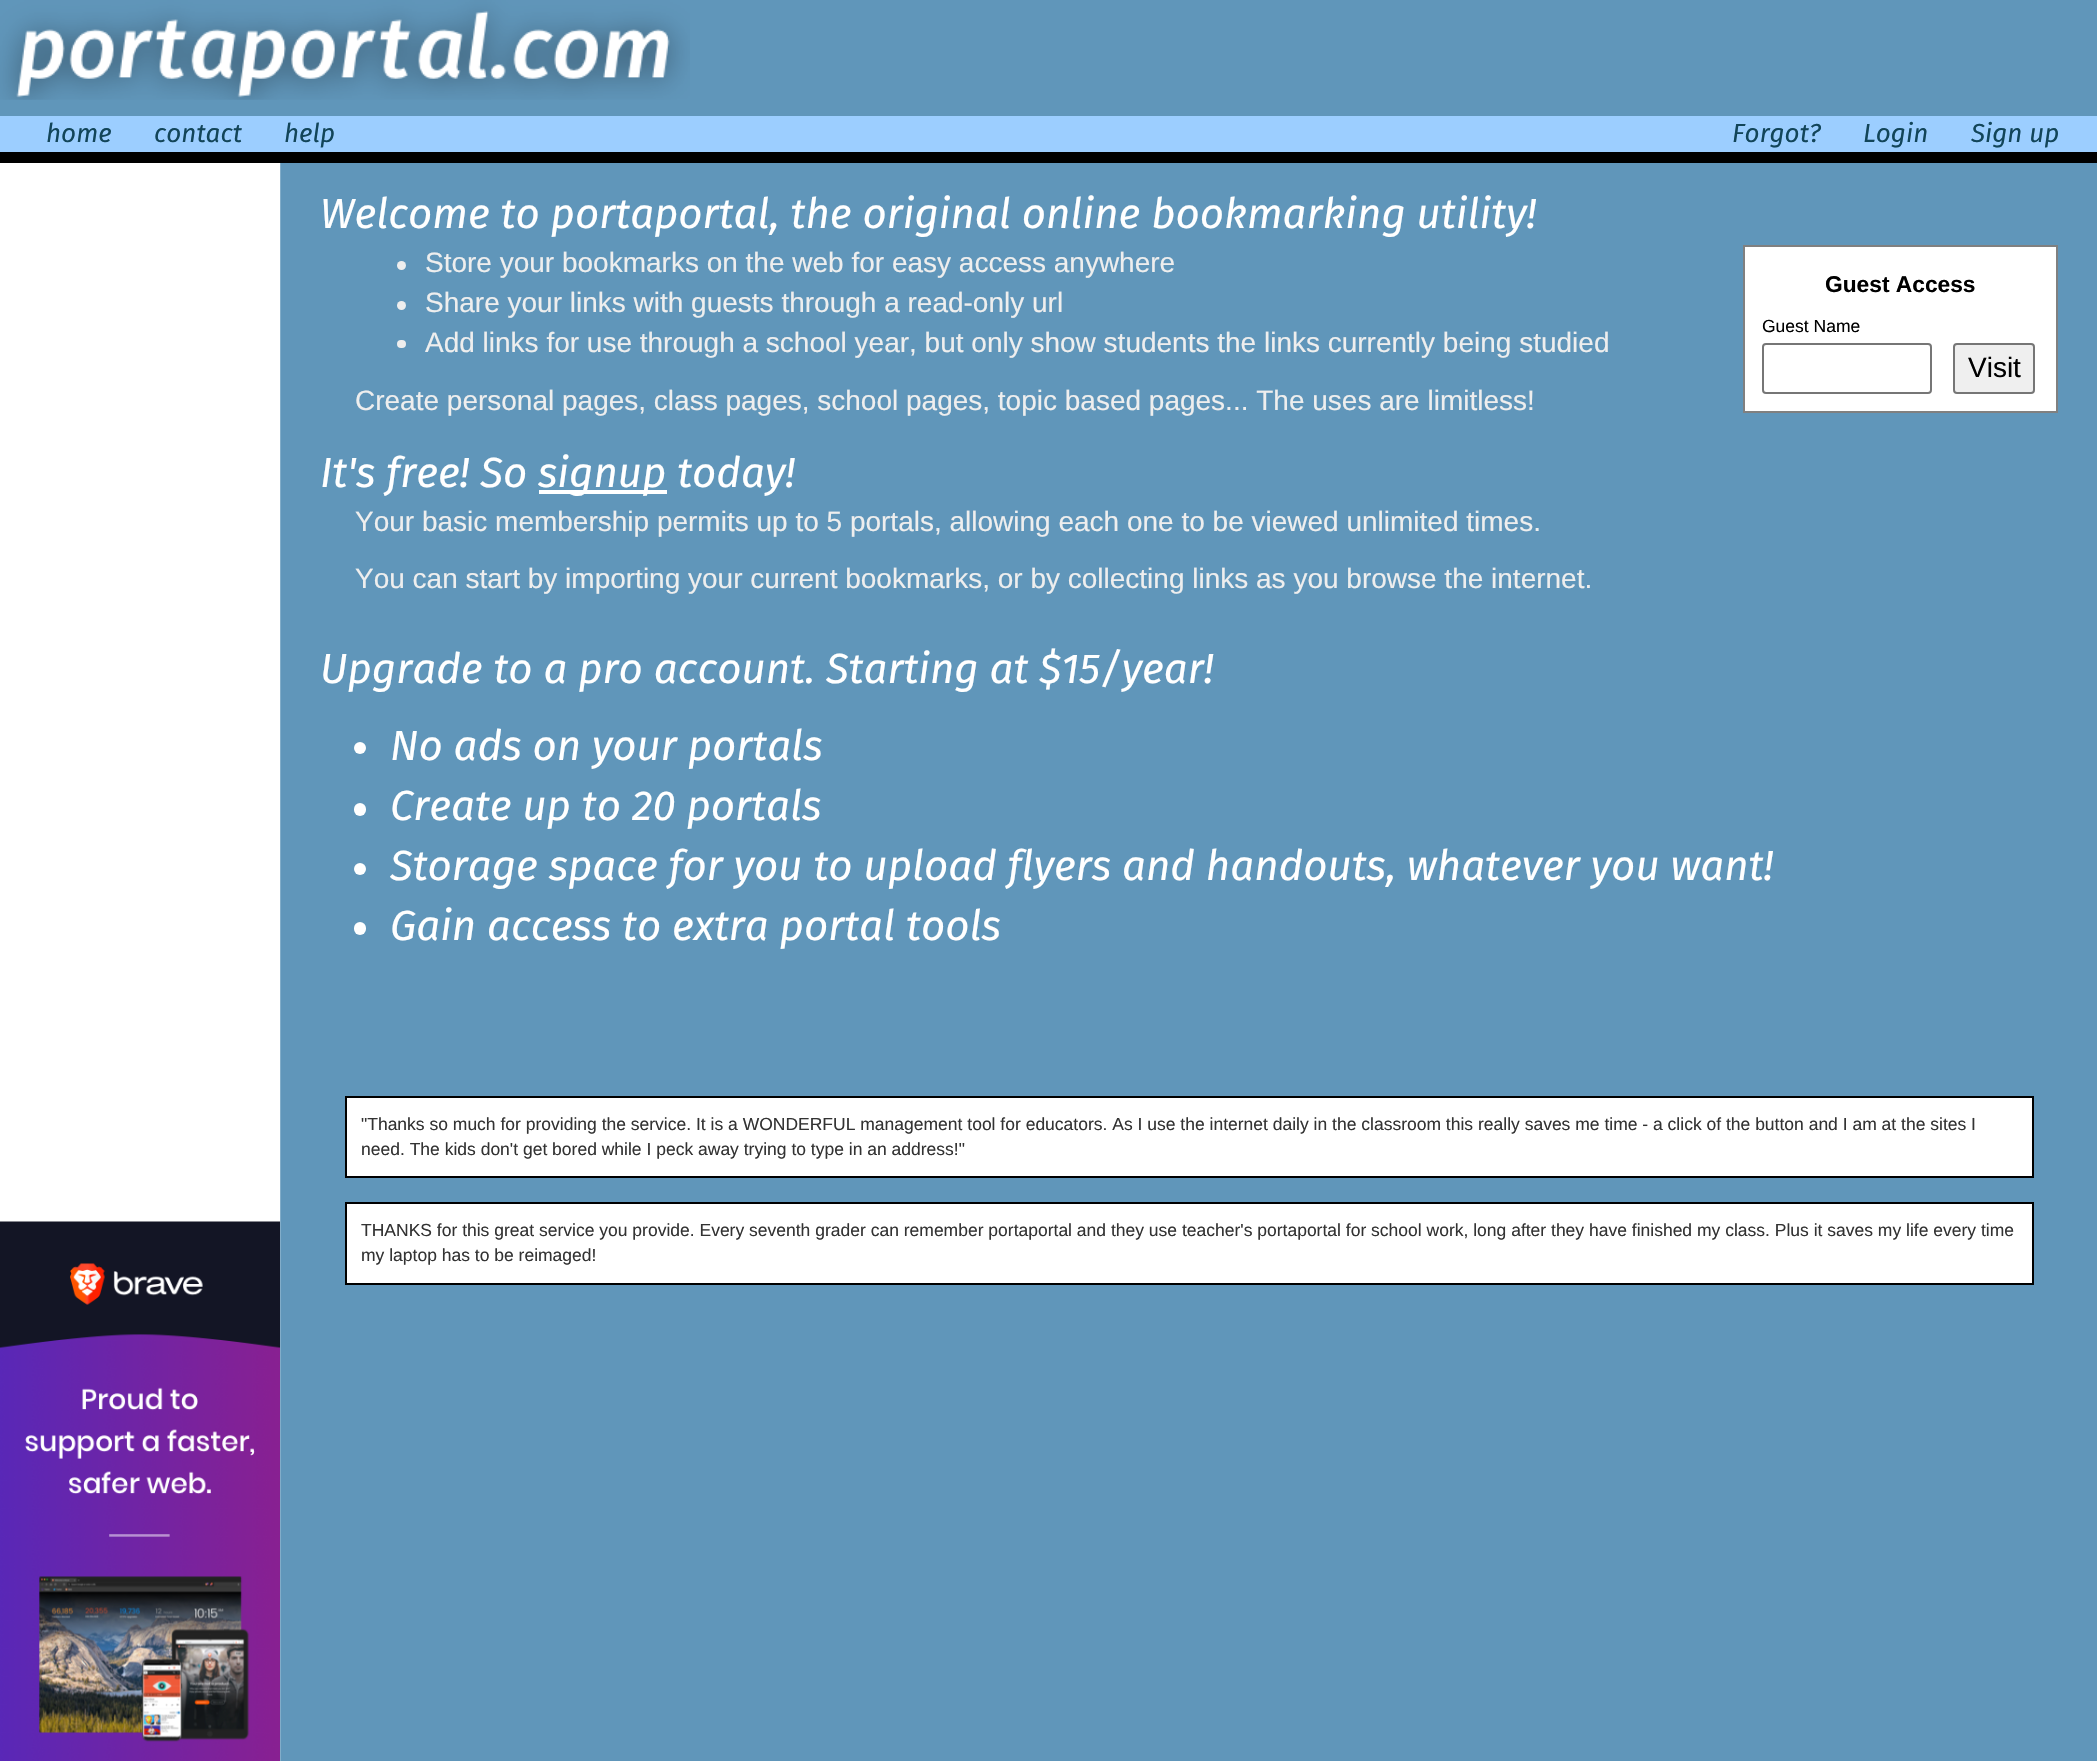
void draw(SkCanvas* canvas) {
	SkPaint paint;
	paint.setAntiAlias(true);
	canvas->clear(0xff6096ba);
	canvas->drawImageRect(SkImages::DeferredFromEncodedData(SkData::MakeFromFileName("img1.png")), SkRect::MakeXYWH(280, 163, 1, 1598), SkSamplingOptions());
	canvas->drawImageRect(SkImages::DeferredFromEncodedData(SkData::MakeFromFileName("img2.png")), SkRect::MakeXYWH(0, 0, 690, 100), SkSamplingOptions());
	paint.setColor(0xff9cceff);
	canvas->drawRect(SkRect::MakeXYWH(0, 116, 2097, 36), paint);
	paint.setColor(0xff000000);
	canvas->drawRect(SkRect::MakeXYWH(0, 152, 2097, 11), paint);
	SkFont f1(fontMgr->matchFamilyStyle("Fira Sans", SkFontStyle::Italic()), 26);
	f1.setSubpixel(true);
	paint.setColor(0xff124559);
	canvas->drawString("home", 46, 142, f1, paint);
	canvas->drawString("contact", 154, 142, f1, paint);
	canvas->drawString("help", 284, 142, f1, paint);
	canvas->drawString("Forgot?", 1732, 142, f1, paint);
	canvas->drawString("Login", 1863, 142, f1, paint);
	canvas->drawString("Sign up", 1971, 142, f1, paint);
	paint.setColor(0xffffffff);
	canvas->drawRect(SkRect::MakeXYWH(0, 163, 280, 1059), paint);
	canvas->drawImageRect(SkImages::DeferredFromEncodedData(SkData::MakeFromFileName("img3.png")), SkRect::MakeXYWH(0, 1221, 280, 540), SkSamplingOptions());
	SkFont f2(fontMgr->matchFamilyStyle("Fira Sans", SkFontStyle::Italic()), 42);
	f2.setSubpixel(true);
	canvas->drawString("Welcome to portaportal, the original online bookmarking utility!", 320, 228, f2, paint);
	paint.setColor(0xffeeeeee);
	canvas->drawCircle(401.5, 265.5, 4.5, paint);
	SkFont f3(fontMgr->matchFamilyStyle("Liberation Sans", SkFontStyle::Normal()), 28);
	f3.setSubpixel(true);
	canvas->drawString("Store your bookmarks on the web for easy access anywhere", 425, 272, f3, paint);
	canvas->drawCircle(401.5, 305.5, 4.5, paint);
	canvas->drawString("Share your links with guests through a read-only url", 425, 312, f3, paint);
	canvas->drawRoundRect(SkRect::MakeXYWH(397, 340, 9, 8), 4, 4, paint);
	canvas->drawString("Add links for use through a school year, but only show students the links currently being studied", 425, 352, f3, paint);
	paint.setColor(0xffffffff);
	canvas->drawRect(SkRect::MakeXYWH(1744, 246, 313, 166), paint);
	paint.setStroke(true);
	paint.setStrokeWidth(2);
	paint.setColor(0xff808080);
	canvas->drawRect(SkRect::MakeXYWH(1744, 246, 313, 166), paint);
	SkFont f4(fontMgr->matchFamilyStyle("Liberation Sans", SkFontStyle::Bold()), 22.75);
	f4.setSubpixel(true);
	paint.setStroke(false);
	paint.setColor(0xff000000);
	canvas->drawString("Guest Access", 1825, 292, f4, paint);
	SkFont f5(fontMgr->matchFamilyStyle("Liberation Sans", SkFontStyle::Normal()), 17.5);
	f5.setSubpixel(true);
	canvas->drawString("Guest Name", 1762, 332, f5, paint);
	paint.setStroke(true);
	paint.setColor(0xff767676);
	canvas->drawRoundRect(SkRect::MakeXYWH(1763, 344, 168, 49), 3, 3, paint);
	paint.setStroke(false);
	paint.setColor(0xffefefef);
	canvas->drawRoundRect(SkRect::MakeXYWH(1954, 344, 80, 49), 3, 3, paint);
	paint.setStroke(true);
	paint.setColor(0xff767676);
	canvas->drawRoundRect(SkRect::MakeXYWH(1954, 344, 80, 49), 3, 3, paint);
	paint.setStroke(false);
	paint.setColor(0xff000000);
	canvas->drawString("Visit", 1968, 377, f3, paint);
	paint.setColor(0xffeeeeee);
	canvas->drawString("Create personal pages, class pages, school pages, topic based pages... The uses are limitless!", 355, 410, f3, paint);
	paint.setColor(0xffffffff);
	canvas->drawString("It's free! So", 320, 487, f2, paint);
	canvas->drawRect(SkRect::MakeXYWH(539, 490, 128, 4), paint);
	canvas->drawString("signup today!", 538, 487, f2, paint);
	paint.setColor(0xffeeeeee);
	canvas->drawString("Your basic membership permits up to 5 portals, allowing each one to be viewed unlimited times.", 355, 531, f3, paint);
	canvas->drawString("You can start by importing your current bookmarks, or by collecting links as you browse the internet.", 355, 588, f3, paint);
	paint.setColor(0xffffffff);
	canvas->drawString("Upgrade to a pro account. Starting at $15/year!", 320, 683, f2, paint);
	canvas->drawCircle(360, 748, 6, paint);
	canvas->drawString("No ads on your portals", 390, 760, f2, paint);
	canvas->drawRoundRect(SkRect::MakeXYWH(354, 803, 12, 13), 6, 6, paint);
	canvas->drawString("Create up to 20 portals", 390, 820, f2, paint);
	canvas->drawCircle(360, 869, 6, paint);
	canvas->drawString("Storage space for you to upload flyers and handouts, whatever you want!", 390, 880, f2, paint);
	canvas->drawRoundRect(SkRect::MakeXYWH(354, 922, 12, 13), 6, 6, paint);
	canvas->drawString("Gain access to extra portal tools", 390, 940, f2, paint);
	canvas->drawRect(SkRect::MakeXYWH(346, 1097, 1687, 80), paint);
	paint.setStroke(true);
	paint.setColor(0xff000000);
	canvas->drawRect(SkRect::MakeXYWH(346, 1097, 1687, 80), paint);
	paint.setStroke(false);
	paint.setColor(0xff333333);
	canvas->drawString("\"Thanks so much for providing the service. It is a WONDERFUL management tool for educators. As I use the internet daily in the classroom this really saves me time - a click of the button and I am at the sites I", 361, 1130, f5, paint);
	canvas->drawString("need. The kids don't get bored while I peck away trying to type in an address!\"", 361, 1155, f5, paint);
	paint.setColor(0xffffffff);
	canvas->drawRect(SkRect::MakeXYWH(346, 1203, 1687, 81), paint);
	paint.setStroke(true);
	paint.setColor(0xff000000);
	canvas->drawRect(SkRect::MakeXYWH(346, 1203, 1687, 81), paint);
	paint.setStroke(false);
	paint.setColor(0xff333333);
	canvas->drawString("THANKS for this great service you provide. Every seventh grader can remember portaportal and they use teacher's portaportal for school work, long after they have finished my class. Plus it saves my life every time", 361, 1236, f5, paint);
	canvas->drawString("my laptop has to be reimaged!", 361, 1261, f5, paint);
}
